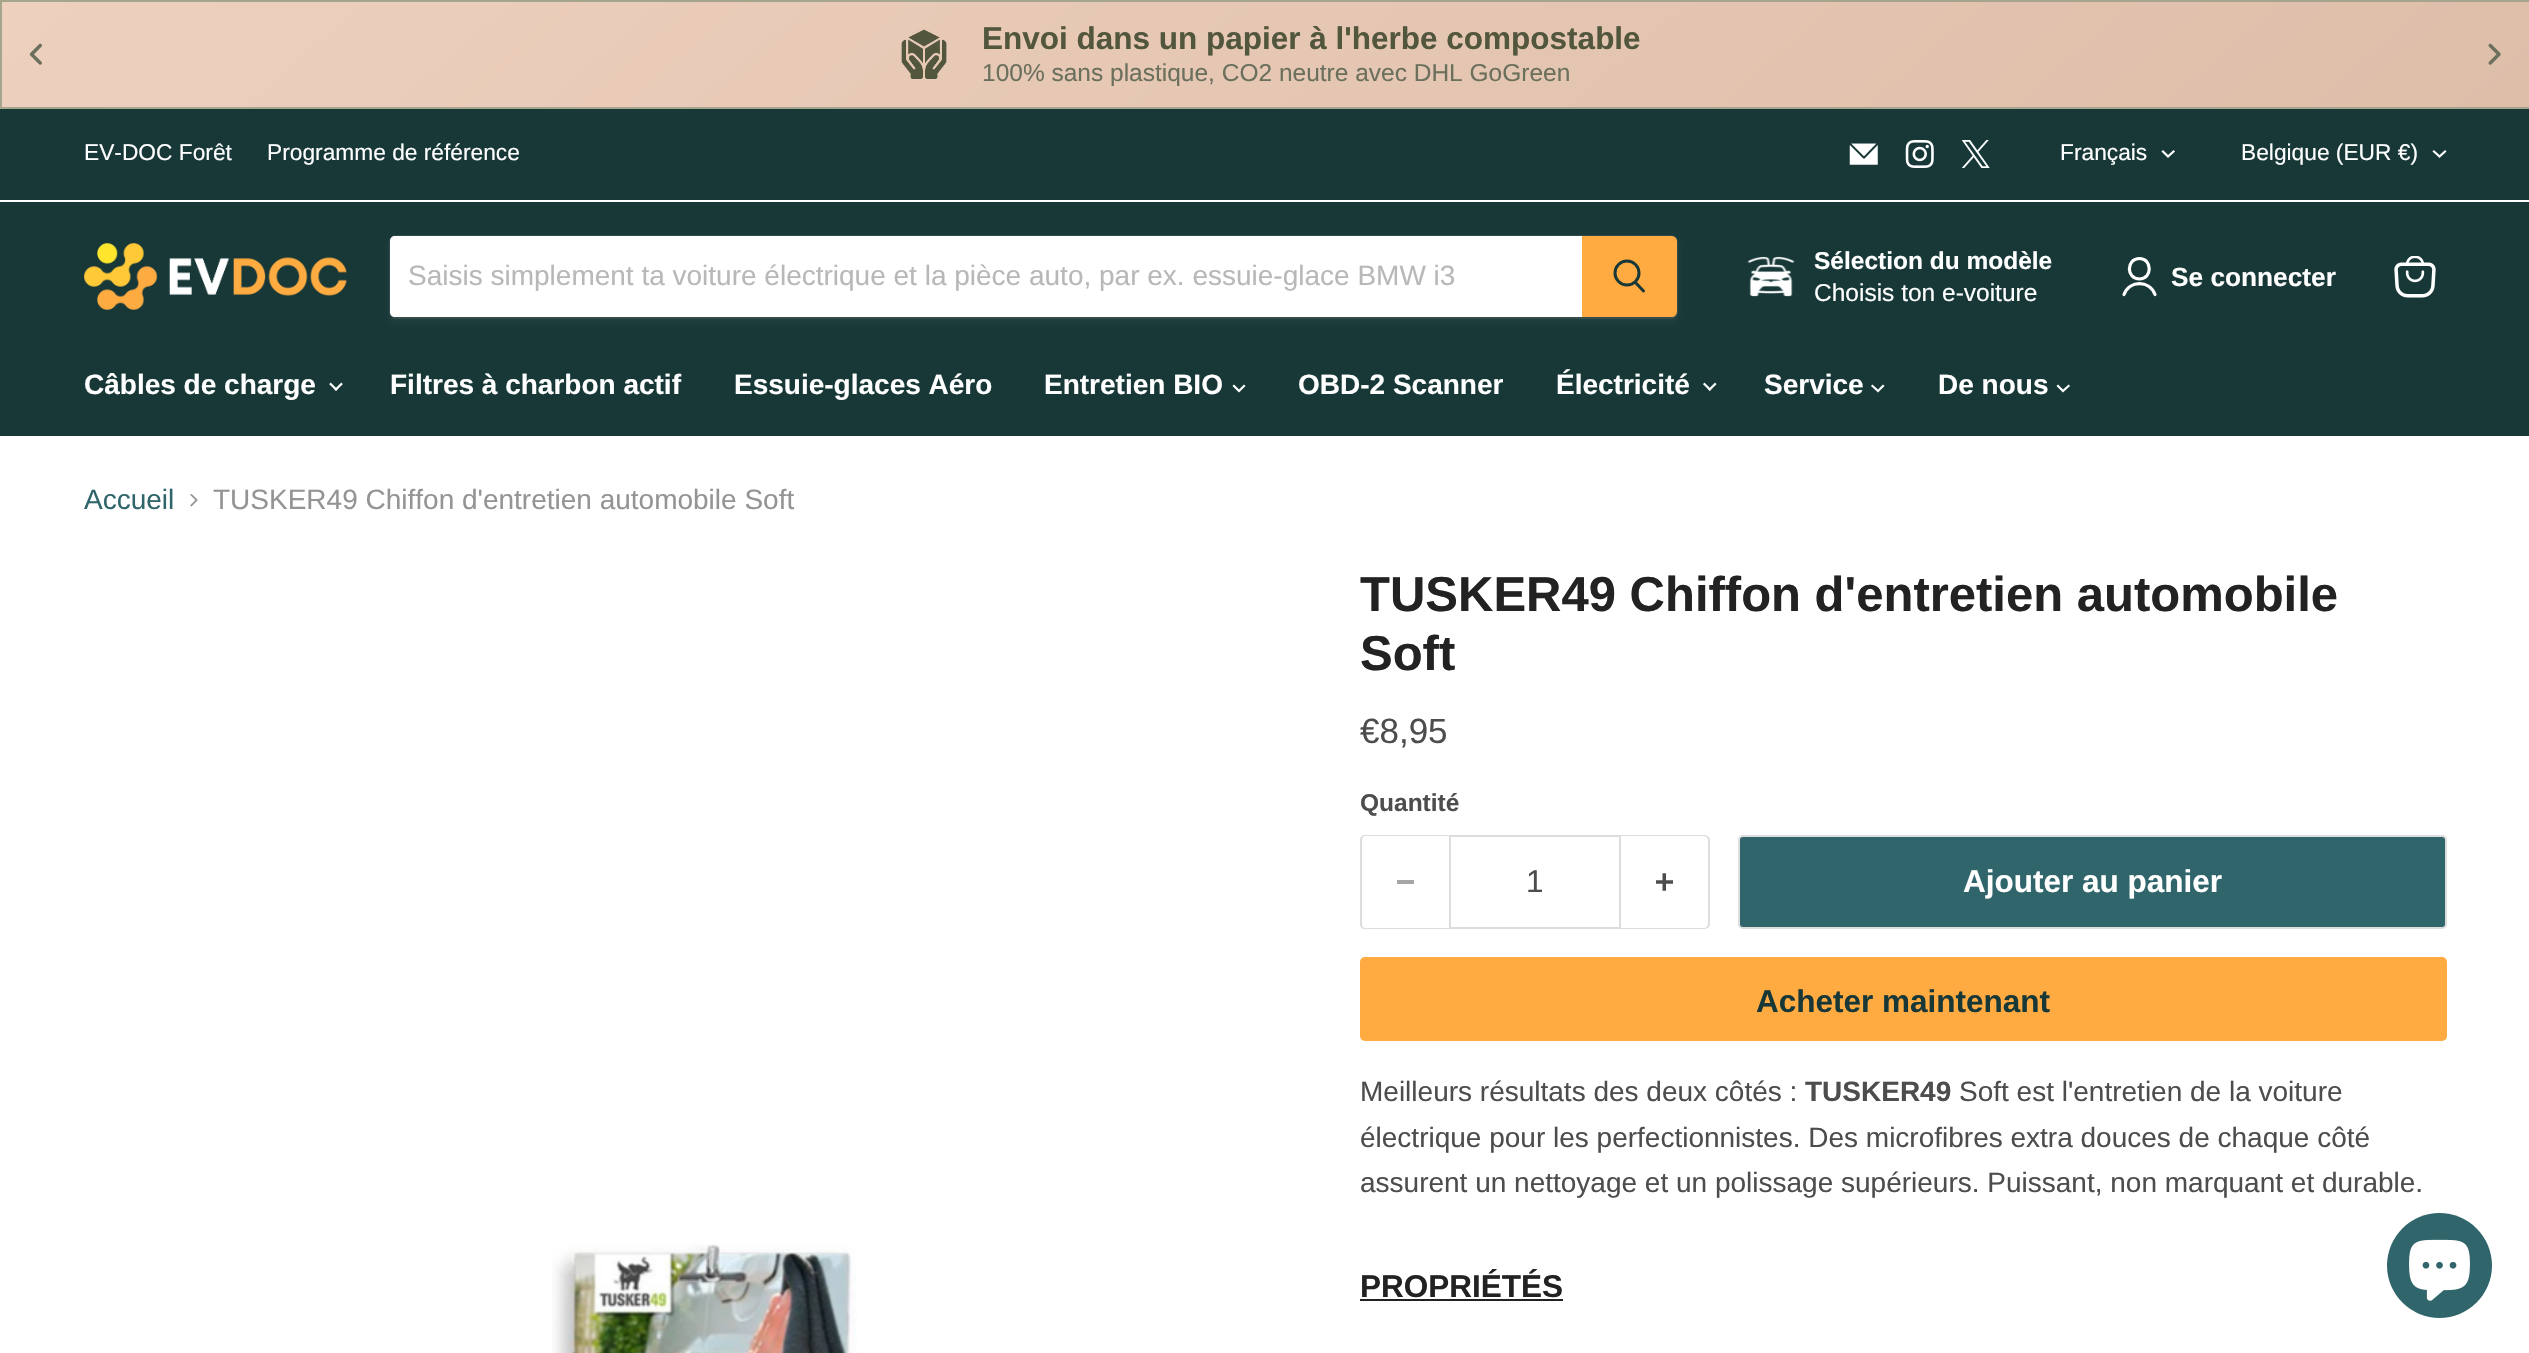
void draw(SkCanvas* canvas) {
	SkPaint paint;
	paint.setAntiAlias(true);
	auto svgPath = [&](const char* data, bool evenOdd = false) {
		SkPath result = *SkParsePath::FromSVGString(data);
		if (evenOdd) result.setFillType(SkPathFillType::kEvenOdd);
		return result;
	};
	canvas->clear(0xffffffff);
	{
		const SkColor colors[] = {0xffedd0be, 0xffddbea9};
		const float stops[] = {0, 1};
		const SkPoint ends[] = {{695, -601}, {1835, 710}};
		paint.setShader(SkGradientShader::MakeLinear(ends, colors, stops, 2, SkTileMode::kClamp));
		paint.setAlpha(255);
	}
	canvas->drawRect(SkRect::MakeXYWH(2, 2, 2527, 105), paint);
	paint.setStroke(true);
	paint.setStrokeWidth(2);
	paint.setShader(nullptr);
	paint.setColor(0xffa5a58d);
	canvas->drawRect(SkRect::MakeXYWH(1, 1, 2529, 107), paint);
	canvas->drawImageRect(SkImages::DeferredFromEncodedData(SkData::MakeFromFileName("img1.png")), SkRect::MakeXYWH(901, 29, 46, 50), SkSamplingOptions());
	SkFont f1(fontMgr->matchFamilyStyle("Liberation Sans", SkFontStyle::Bold()), 31.5);
	f1.setSubpixel(true);
	paint.setStroke(false);
	paint.setColor(0xff52563c);
	canvas->drawString("Envoi dans un papier à l'herbe compostable", 982, 49, f1, paint);
	SkFont f2(fontMgr->matchFamilyStyle("Liberation Sans", SkFontStyle::Normal()), 24.5);
	f2.setSubpixel(true);
	paint.setColor(0xff6b705c);
	canvas->drawString("100% sans plastique, CO2 neutre avec DHL GoGreen", 982, 81, f2, paint);
	canvas->drawImageRect(SkImages::DeferredFromEncodedData(SkData::MakeFromFileName("img2.png")), SkRect::MakeXYWH(29, 43, 13, 22), SkSamplingOptions());
	canvas->drawImageRect(SkImages::DeferredFromEncodedData(SkData::MakeFromFileName("img3.png")), SkRect::MakeXYWH(2488, 43, 13, 22), SkSamplingOptions());
	paint.setColor(0xff183838);
	canvas->drawRect(SkRect::MakeXYWH(0, 109, 2529, 91), paint);
	SkFont f3(fontMgr->matchFamilyStyle("Liberation Sans", SkFontStyle::Normal()), 22.75);
	f3.setSubpixel(true);
	paint.setColor(0xffffffff);
	canvas->drawString("EV-DOC Forêt", 84, 160, f3, paint);
	canvas->drawString("Programme de référence", 267, 160, f3, paint);
	canvas->drawImageRect(SkImages::DeferredFromEncodedData(SkData::MakeFromFileName("img4.png")), SkRect::MakeXYWH(1849, 143, 29, 22), SkSamplingOptions());
	canvas->drawImageRect(SkImages::DeferredFromEncodedData(SkData::MakeFromFileName("img5.png")), SkRect::MakeXYWH(1905, 140, 29, 28), SkSamplingOptions());
	canvas->drawImageRect(SkImages::DeferredFromEncodedData(SkData::MakeFromFileName("img6.png")), SkRect::MakeXYWH(1961, 140, 29, 28), SkSamplingOptions());
	canvas->drawString("Français", 2060, 160, f3, paint);
	paint.setStroke(true);
	paint.setStrokeWidth(2.2);
	paint.setStrokeCap(SkPaint::kSquare_Cap);
	canvas->drawPath(svgPath("M2168 156.5L2173.5 151.5M2168 156.5L2163 151.5"), paint);
	paint.setStroke(false);
	canvas->drawString("Belgique (EUR €)", 2241, 160, f3, paint);
	paint.setStroke(true);
	canvas->drawPath(svgPath("M2439.5 156.5L2445 151.5M2439.5 156.5L2434 151.5"), paint);
	paint.setStroke(false);
	paint.setColor(0xff183838);
	canvas->drawRect(SkRect::MakeXYWH(0, 202, 2529, 234), paint);
	canvas->drawImageRect(SkImages::DeferredFromEncodedData(SkData::MakeFromFileName("img7.png")), SkRect::MakeXYWH(84, 243, 263, 67), SkSamplingOptions());
	paint.setColor(0x1c808080);
	paint.setMaskFilter(SkMaskFilter::MakeBlur(kNormal_SkBlurStyle, 2.5));
	canvas->drawRoundRect(SkRect::MakeXYWH(389, 238, 1289, 84), 7, 7, paint);
	paint.setMaskFilter(nullptr);
	paint.setStroke(true);
	paint.setStrokeWidth(2);
	paint.setStrokeCap(SkPaint::kButt_Cap);
	paint.setColor(0x33808080);
	canvas->drawRoundRect(SkRect::MakeXYWH(390, 236, 1287, 82), 6, 6, paint);
	paint.setStroke(false);
	paint.setColor(0xffffffff);
	canvas->drawPath(svgPath("M395 236H1582V317H395C392 317 390 315 390 312V241C390 238 392 236 395 236Z"), paint);
	SkFont f4(fontMgr->matchFamilyStyle("Liberation Sans", SkFontStyle::Normal()), 28);
	f4.setSubpixel(true);
	paint.setColor(0xffb8b8b8);
	canvas->drawString("Saisis simplement ta voiture électrique et la pièce auto, par ex. essuie-glace BMW i3", 408, 285, f4, paint);
	paint.setColor(0xffffab41);
	canvas->drawPath(svgPath("M1583 237H1672C1674 237 1676 239 1676 241V312C1676 314 1674 316 1672 316H1583Z"), paint);
	paint.setStroke(true);
	canvas->drawPath(svgPath("M1583 237H1672C1674 237 1676 239 1676 241V312C1676 314 1674 316 1672 316H1583Z"), paint);
	paint.setStrokeWidth(3);
	paint.setStrokeCap(SkPaint::kRound_Cap);
	paint.setColor(0xff183838);
	canvas->drawPath(svgPath("M1643.5 291L1635.5 282.5"), paint);
	paint.setStrokeCap(SkPaint::kButt_Cap);
	canvas->drawCircle(1627, 273, 12, paint);
	canvas->drawImageRect(SkImages::DeferredFromEncodedData(SkData::MakeFromFileName("img8.png")), SkRect::MakeXYWH(1747, 256, 48, 41), SkSamplingOptions());
	SkFont f5(fontMgr->matchFamilyStyle("Liberation Sans", SkFontStyle::Bold()), 24.5);
	f5.setSubpixel(true);
	paint.setStroke(false);
	paint.setColor(0xffffffff);
	canvas->drawString("Sélection du modèle", 1814, 269, f5, paint);
	canvas->drawString("Choisis ton e-voiture", 1814, 301, f2, paint);
	paint.setStroke(true);
	paint.setStrokeWidth(3.2);
	paint.setStrokeCap(SkPaint::kRound_Cap);
	paint.setStrokeJoin(SkPaint::kRound_Join);
	canvas->drawPath(svgPath("M2139.5 279C2152.5 279 2152.5 258.5 2139.5 258.5C2126 258.5 2126 279 2139.5 279ZM2155 294.5C2149.5 280 2129.5 280 2124 294.5"), paint);
	SkFont f6(fontMgr->matchFamilyStyle("Liberation Sans", SkFontStyle::Bold()), 26.25);
	f6.setSubpixel(true);
	paint.setStroke(false);
	canvas->drawString("Se connecter", 2171, 286, f6, paint);
	canvas->drawImageRect(SkImages::DeferredFromEncodedData(SkData::MakeFromFileName("img9.png")), SkRect::MakeXYWH(2394, 256, 42, 42), SkSamplingOptions());
	SkFont f7(fontMgr->matchFamilyStyle("Liberation Sans", SkFontStyle::Bold()), 28);
	f7.setSubpixel(true);
	canvas->drawString("Câbles de charge", 84, 394, f7, paint);
	canvas->drawImageRect(SkImages::DeferredFromEncodedData(SkData::MakeFromFileName("img10.png")), SkRect::MakeXYWH(329, 382, 14, 9), SkSamplingOptions());
	canvas->drawString("Filtres à charbon actif", 390, 394, f7, paint);
	canvas->drawString("Essuie-glaces Aéro", 734, 394, f7, paint);
	canvas->drawString("Entretien BIO", 1044, 394, f7, paint);
	paint.setStroke(true);
	paint.setStrokeWidth(2.2);
	paint.setStrokeCap(SkPaint::kSquare_Cap);
	paint.setStrokeJoin(SkPaint::kMiter_Join);
	canvas->drawPath(svgPath("M1239 391L1244 386M1239 391L1234 386"), paint);
	paint.setStroke(false);
	canvas->drawString("OBD-2 Scanner", 1298, 394, f7, paint);
	canvas->drawString("Électricité", 1556, 394, f7, paint);
	canvas->drawImageRect(SkImages::DeferredFromEncodedData(SkData::MakeFromFileName("img11.png")), SkRect::MakeXYWH(1703, 382, 14, 9), SkSamplingOptions());
	canvas->drawString("Service", 1764, 394, f7, paint);
	paint.setStroke(true);
	canvas->drawPath(svgPath("M1878 391L1883 386M1878 391L1872.5 386"), paint);
	paint.setStroke(false);
	canvas->drawString("De nous", 1938, 394, f7, paint);
	paint.setStroke(true);
	canvas->drawPath(svgPath("M2063 391L2068.5 386M2063 391L2058 386"), paint);
	paint.setStroke(false);
	paint.setColor(0xff2f656b);
	canvas->drawString("Accueil", 84, 509, f4, paint);
	canvas->drawImageRect(SkImages::DeferredFromEncodedData(SkData::MakeFromFileName("img12.png")), SkRect::MakeXYWH(190, 494, 8, 13), SkSamplingOptions());
	paint.setColor(0xff949494);
	canvas->drawString("TUSKER49 Chiffon d'entretien automobile Soft", 213, 509, f4, paint);
	canvas->drawImageRect(SkImages::DeferredFromEncodedData(SkData::MakeFromFileName("img13.png")), SkRect::MakeXYWH(552, 1244, 305, 109), SkSamplingOptions());
	SkFont f8(fontMgr->matchFamilyStyle("Liberation Sans", SkFontStyle::Bold()), 49);
	f8.setSubpixel(true);
	paint.setColor(0xff222222);
	canvas->drawString("TUSKER49 Chiffon d'entretien automobile", 1360, 611, f8, paint);
	canvas->drawString("Soft", 1360, 670, f8, paint);
	SkFont f9(fontMgr->matchFamilyStyle("Liberation Sans", SkFontStyle::Normal()), 35);
	f9.setSubpixel(true);
	paint.setColor(0xff4d4d4d);
	canvas->drawString("€8,95", 1360, 743, f9, paint);
	canvas->drawString("Quantité", 1360, 811, f5, paint);
	paint.setColor(0xffdddddd);
	canvas->drawPath(svgPath("M1365 835H1449V929H1365C1362 929 1360 927 1360 924V840C1360 837 1362 835 1365 835ZM1365 836H1449V928H1365C1363 928 1362 926 1362 924V840C1362 838 1363 836 1365 836Z", true), paint);
	paint.setColor(0xffa6a6a6);
	canvas->drawRect(SkRect::MakeXYWH(1397, 880, 17, 4), paint);
	paint.setStroke(true);
	paint.setStrokeWidth(2);
	paint.setStrokeCap(SkPaint::kButt_Cap);
	paint.setColor(0xffdddddd);
	canvas->drawRect(SkRect::MakeXYWH(1450, 836, 170, 92), paint);
	SkFont f10(fontMgr->matchFamilyStyle("Liberation Sans", SkFontStyle::Normal()), 31.5);
	f10.setSubpixel(true);
	paint.setStroke(false);
	paint.setColor(0xff4d4d4d);
	canvas->drawString("1", 1526, 892, f10, paint);
	paint.setColor(0xffdddddd);
	canvas->drawPath(svgPath("M1620 835H1704C1707 835 1710 837 1710 840V924C1710 927 1707 929 1704 929H1620ZM1620 836H1704C1706 836 1708 838 1708 840V924C1708 926 1706 928 1704 928H1620Z", true), paint);
	canvas->drawImageRect(SkImages::DeferredFromEncodedData(SkData::MakeFromFileName("img14.png")), SkRect::MakeXYWH(1656, 873, 17, 18), SkSamplingOptions());
	paint.setColor(0xff2f656b);
	canvas->drawRoundRect(SkRect::MakeXYWH(1739, 836, 707, 92), 4, 4, paint);
	paint.setStroke(true);
	paint.setColor(0xffdddddd);
	canvas->drawRoundRect(SkRect::MakeXYWH(1739, 836, 707, 92), 4, 4, paint);
	paint.setStroke(false);
	paint.setColor(0xffffffff);
	canvas->drawString("Ajouter au panier", 1963, 892, f1, paint);
	paint.setColor(0xffffab41);
	canvas->drawRoundRect(SkRect::MakeXYWH(1360, 957, 1087, 84), 5, 5, paint);
	paint.setColor(0xff183838);
	canvas->drawString("Acheter maintenant", 1756, 1012, f1, paint);
	paint.setColor(0xff4d4d4d);
	canvas->drawString("Meilleurs résultats des deux côtés :", 1360, 1101, f4, paint);
	canvas->drawString("TUSKER49", 1805, 1101, f7, paint);
	canvas->drawString("Soft est l'entretien de la voiture", 1959, 1101, f4, paint);
	canvas->drawString("électrique pour les perfectionnistes. Des microfibres extra douces de chaque côté", 1360, 1147, f4, paint);
	canvas->drawString("assurent un nettoyage et un polissage supérieurs. Puissant, non marquant et durable.", 1360, 1192, f4, paint);
	paint.setColor(0xff222222);
	canvas->drawString("PROPRIÉTÉS", 1360, 1297, f1, paint);
	canvas->drawRect(SkRect::MakeXYWH(1360, 1299, 203, 2), paint);
	paint.setColor(0xff2f656b);
	canvas->drawCircle(2439.5, 1265.5, 52.5, paint);
	canvas->drawImageRect(SkImages::DeferredFromEncodedData(SkData::MakeFromFileName("img15.png")), SkRect::MakeXYWH(2409, 1239, 61, 62), SkSamplingOptions());
}
